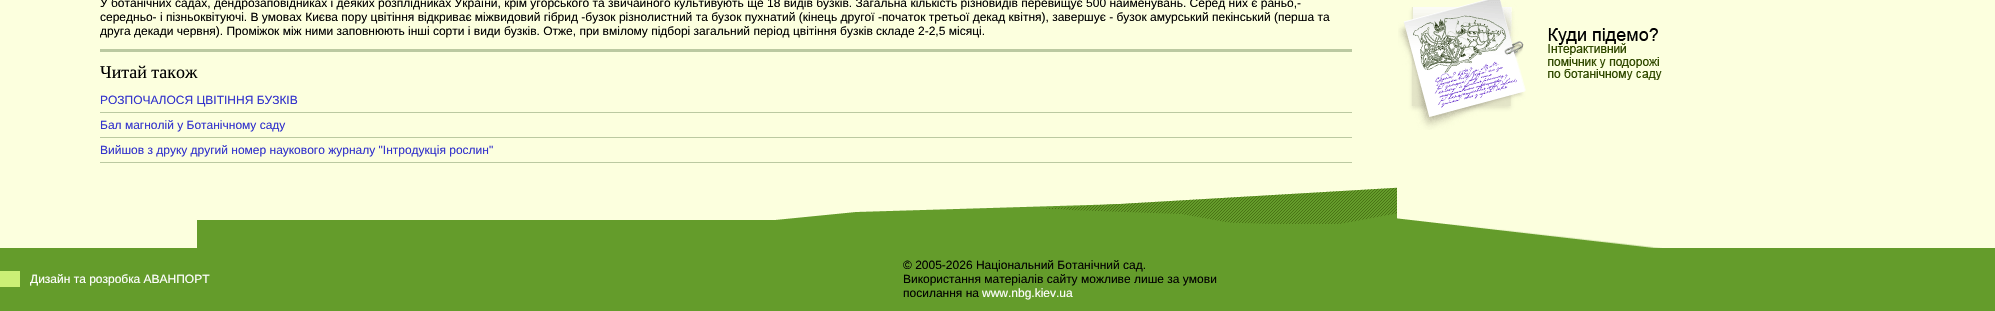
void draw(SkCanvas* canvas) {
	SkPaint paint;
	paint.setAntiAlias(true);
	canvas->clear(0xff649c2b);
	paint.setColor(0xfffcffde);
	canvas->drawRect(SkRect::MakeXYWH(0, 0, 1995, 248), paint);
	canvas->drawImageRect(SkImages::DeferredFromEncodedData(SkData::MakeFromFileName("img1.png")), SkRect::MakeXYWH(197, 187, 1200, 61), SkSamplingOptions());
	SkFont f1(fontMgr->matchFamilyStyle("Liberation Sans", SkFontStyle::Normal()), 12);
	f1.setSubpixel(true);
	paint.setColor(0xff000000);
	canvas->drawString("У ботанічних садах, дендрозаповідниках і деяких розплідниках України, крім угорського та звичайного культивують ще 18 видів бузків. Загальна кількість різновидів перевищує 500 найменувань. Серед них є раньо,-", 100, 7, f1, paint);
	canvas->drawString("середньо- і пізньоквітуючі. В умовах Києва пору цвітіння відкриває міжвидовий гібрид -бузок різнолистний та бузок пухнатий (кінець другої -початок третьої декад квітня), завершує - бузок амурський пекінський (перша та", 100, 21, f1, paint);
	canvas->drawString("друга декади червня). Проміжок між ними заповнюють інші сорти і види бузків. Отже, при вмілому підборі загальний період цвітіння бузків складе 2-2,5 місяці.", 100, 35, f1, paint);
	paint.setColor(0xffbbc9a1);
	canvas->drawRect(SkRect::MakeXYWH(100, 49, 1252, 3), paint);
	SkFont f2(fontMgr->matchFamilyStyle("Liberation Serif", SkFontStyle::Normal()), 18);
	f2.setSubpixel(true);
	paint.setColor(0xff000000);
	canvas->drawString("Читай також", 100, 78, f2, paint);
	paint.setColor(0xffbbc9a1);
	canvas->drawRect(SkRect::MakeXYWH(100, 112, 1252, 1), paint);
	paint.setColor(0xff3333cc);
	canvas->drawString("РОЗПОЧАЛОСЯ ЦВІТІННЯ БУЗКІВ", 100, 104, f1, paint);
	paint.setColor(0xffbbc9a1);
	canvas->drawRect(SkRect::MakeXYWH(100, 137, 1252, 1), paint);
	paint.setColor(0xff3333cc);
	canvas->drawString("Бал магнолій у Ботанічному саду", 100, 129, f1, paint);
	paint.setColor(0xffbbc9a1);
	canvas->drawRect(SkRect::MakeXYWH(100, 162, 1252, 1), paint);
	paint.setColor(0xff3333cc);
	canvas->drawString("Вийшов з друку другий номер наукового журналу \"Інтродукція рослин\"", 100, 154, f1, paint);
	canvas->drawImageRect(SkImages::DeferredFromEncodedData(SkData::MakeFromFileName("img2.png")), SkRect::MakeXYWH(1397, 218, 265, 30), SkSamplingOptions());
	canvas->drawImageRect(SkImages::DeferredFromEncodedData(SkData::MakeFromFileName("img3.png")), SkRect::MakeXYWH(1398, 0, 128, 130), SkSamplingOptions());
	canvas->drawImageRect(SkImages::DeferredFromEncodedData(SkData::MakeFromFileName("img4.png")), SkRect::MakeXYWH(1548, 28, 114, 52), SkSamplingOptions());
	paint.setColor(0xffcbef76);
	canvas->drawRect(SkRect::MakeXYWH(0, 271, 20, 16), paint);
	paint.setColor(0xffffffff);
	canvas->drawString("Дизайн та розробка АВАНПОРТ", 30, 283, f1, paint);
	paint.setColor(0xff000000);
	canvas->drawString("© 2005-2026 Національний Ботанічний сад.", 903, 269, f1, paint);
	canvas->drawString("Використання матеріалів сайту можливе лише за умови", 903, 283, f1, paint);
	canvas->drawString("посилання на", 903, 297, f1, paint);
	paint.setColor(0xffffffff);
	canvas->drawString("www.nbg.kiev.ua", 982, 297, f1, paint);
}
